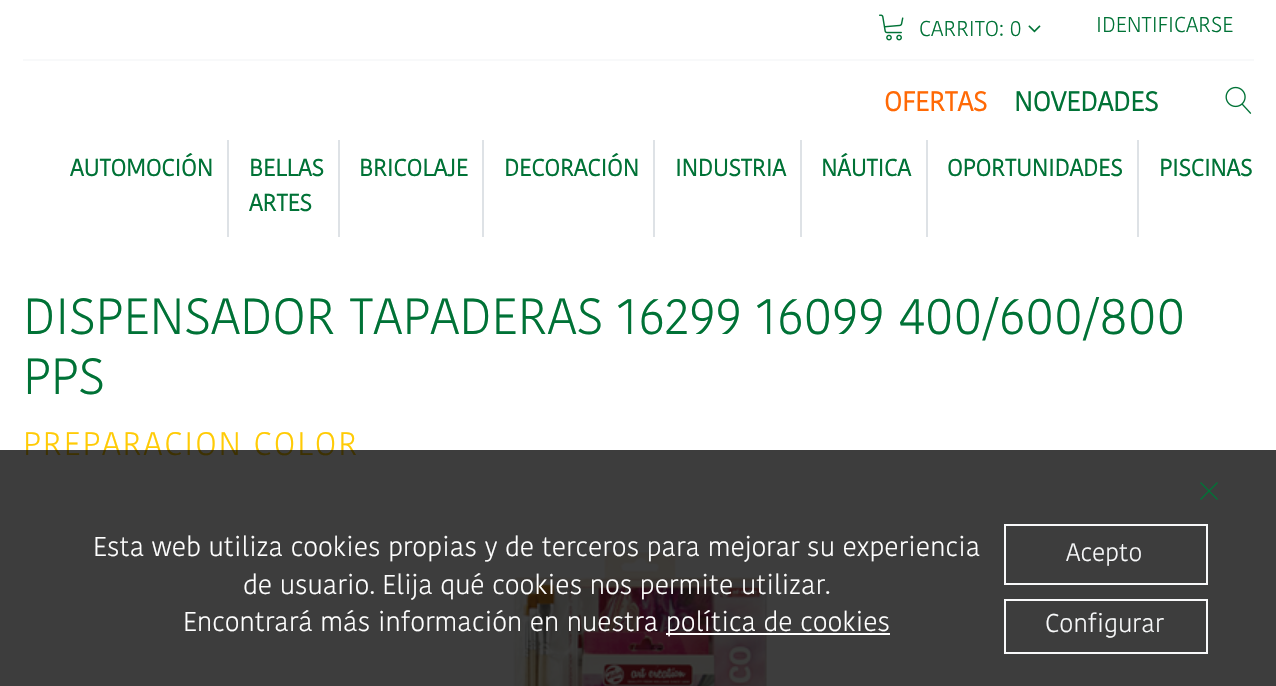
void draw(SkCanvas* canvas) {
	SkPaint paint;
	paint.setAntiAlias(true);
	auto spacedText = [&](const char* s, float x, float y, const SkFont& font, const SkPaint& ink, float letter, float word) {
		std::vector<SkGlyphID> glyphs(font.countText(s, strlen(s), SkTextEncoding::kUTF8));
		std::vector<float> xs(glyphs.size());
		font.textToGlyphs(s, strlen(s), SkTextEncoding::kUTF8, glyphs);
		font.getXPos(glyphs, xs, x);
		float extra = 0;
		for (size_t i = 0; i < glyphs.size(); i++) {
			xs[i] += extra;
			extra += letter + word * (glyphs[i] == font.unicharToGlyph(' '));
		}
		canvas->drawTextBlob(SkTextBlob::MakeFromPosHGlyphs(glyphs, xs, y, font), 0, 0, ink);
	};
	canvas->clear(0xffffffff);
	paint.setColor(0xfff8f9fa);
	canvas->drawRect(SkRect::MakeXYWH(23, 59, 1231, 2), paint);
	canvas->drawImageRect(SkImages::DeferredFromEncodedData(SkData::MakeFromFileName("img1.png")), SkRect::MakeXYWH(879, 14, 25, 27), SkSamplingOptions());
	SkFont f1(fontMgr->matchFamilyStyle("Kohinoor", SkFontStyle(300, SkFontStyle::kNormal_Width, SkFontStyle::kUpright_Slant)), 21.5);
	f1.setSubpixel(true);
	paint.setColor(0xff007236);
	canvas->drawString("CARRITO: 0", 919, 36, f1, paint);
	canvas->drawImageRect(SkImages::DeferredFromEncodedData(SkData::MakeFromFileName("img2.png")), SkRect::MakeXYWH(1028, 25, 13, 8), SkSamplingOptions());
	canvas->drawString("IDENTIFICARSE", 1096, 32, f1, paint);
	SkFont f2(fontMgr->matchFamilyStyle("Kohinoor", SkFontStyle::Bold()), 27);
	f2.setSubpixel(true);
	paint.setColor(0xffff6905);
	canvas->drawString("OFERTAS", 884, 111, f2, paint);
	paint.setColor(0xff007236);
	canvas->drawString("NOVEDADES", 1014, 111, f2, paint);
	canvas->drawImageRect(SkImages::DeferredFromEncodedData(SkData::MakeFromFileName("img3.png")), SkRect::MakeXYWH(1225, 86, 27, 28), SkSamplingOptions());
	paint.setColor(0xffdee2e6);
	canvas->drawRect(SkRect::MakeXYWH(227, 140, 2, 97), paint);
	SkFont f3(fontMgr->matchFamilyStyle("Kohinoor", SkFontStyle::Bold()), 23.5);
	f3.setSubpixel(true);
	paint.setColor(0xff007236);
	canvas->drawString("AUTOMOCIÓN", 70, 176, f3, paint);
	paint.setColor(0xffdee2e6);
	canvas->drawRect(SkRect::MakeXYWH(338, 140, 2, 97), paint);
	paint.setColor(0xff007236);
	canvas->drawString("BELLAS", 249, 176, f3, paint);
	canvas->drawString("ARTES", 249, 211, f3, paint);
	paint.setColor(0xffdee2e6);
	canvas->drawRect(SkRect::MakeXYWH(482, 140, 2, 97), paint);
	paint.setColor(0xff007236);
	canvas->drawString("BRICOLAJE", 359, 176, f3, paint);
	paint.setColor(0xffdee2e6);
	canvas->drawRect(SkRect::MakeXYWH(653, 140, 2, 97), paint);
	paint.setColor(0xff007236);
	canvas->drawString("DECORACIÓN", 504, 176, f3, paint);
	paint.setColor(0xffdee2e6);
	canvas->drawRect(SkRect::MakeXYWH(800, 140, 2, 97), paint);
	paint.setColor(0xff007236);
	canvas->drawString("INDUSTRIA", 675, 176, f3, paint);
	paint.setColor(0xffdee2e6);
	canvas->drawRect(SkRect::MakeXYWH(926, 140, 2, 97), paint);
	paint.setColor(0xff007236);
	canvas->drawString("NÁUTICA", 821, 176, f3, paint);
	paint.setColor(0xffdee2e6);
	canvas->drawRect(SkRect::MakeXYWH(1137, 140, 2, 97), paint);
	paint.setColor(0xff007236);
	canvas->drawString("OPORTUNIDADES", 947, 176, f3, paint);
	canvas->drawString("PISCINAS", 1159, 176, f3, paint);
	SkFont f4(fontMgr->matchFamilyStyle("Kohinoor", SkFontStyle(300, SkFontStyle::kNormal_Width, SkFontStyle::kUpright_Slant)), 50.6);
	f4.setSubpixel(true);
	canvas->drawString("DISPENSADOR TAPADERAS 16299 16099 400/600/800", 23, 334, f4, paint);
	canvas->drawString("PPS", 23, 394, f4, paint);
	SkFont f5(fontMgr->matchFamilyStyle("Kohinoor", SkFontStyle(300, SkFontStyle::kNormal_Width, SkFontStyle::kUpright_Slant)), 32.4);
	f5.setSubpixel(true);
	paint.setColor(0xffffcb05);
	spacedText("PREPARACION COLOR", 23, 455, f5, paint, 1.9, 0);
	canvas->drawImageRect(SkImages::DeferredFromEncodedData(SkData::MakeFromFileName("img4.png")), SkRect::MakeXYWH(513, 551, 255, 135), SkSamplingOptions());
	paint.setColor(0xc2000000);
	canvas->drawRect(SkRect::MakeXYWH(0, 450, 1276, 236), paint);
	canvas->drawImageRect(SkImages::DeferredFromEncodedData(SkData::MakeFromFileName("img5.png")), SkRect::MakeXYWH(1200, 482, 18, 18), SkSamplingOptions());
	SkFont f6(fontMgr->matchFamilyStyle("Kohinoor", SkFontStyle(300, SkFontStyle::kNormal_Width, SkFontStyle::kUpright_Slant)), 27);
	f6.setSubpixel(true);
	paint.setColor(0xffffffff);
	canvas->drawString("Esta web utiliza cookies propias y de terceros para mejorar su experiencia", 93, 556, f6, paint);
	canvas->drawString("de usuario. Elija qué cookies nos permite utilizar.", 243, 594, f6, paint);
	canvas->drawString("Encontrará más información en nuestra", 183, 631, f6, paint);
	canvas->drawRect(SkRect::MakeXYWH(666, 633, 224, 2), paint);
	canvas->drawString("política de cookies", 666, 631, f6, paint);
	paint.setStroke(true);
	paint.setStrokeWidth(2);
	paint.setColor(0xfff8f9fa);
	canvas->drawRect(SkRect::MakeXYWH(1005, 525, 202, 59), paint);
	SkFont f7(fontMgr->matchFamilyStyle("Kohinoor", SkFontStyle(300, SkFontStyle::kNormal_Width, SkFontStyle::kUpright_Slant)), 25);
	f7.setSubpixel(true);
	paint.setStroke(false);
	canvas->drawString("Acepto", 1066, 561, f7, paint);
	paint.setStroke(true);
	canvas->drawRect(SkRect::MakeXYWH(1005, 600, 202, 53), paint);
	SkFont f8(fontMgr->matchFamilyStyle("Kohinoor", SkFontStyle(300, SkFontStyle::kNormal_Width, SkFontStyle::kUpright_Slant)), 25.5);
	f8.setSubpixel(true);
	paint.setStroke(false);
	canvas->drawString("Configurar", 1045, 632, f8, paint);
}
